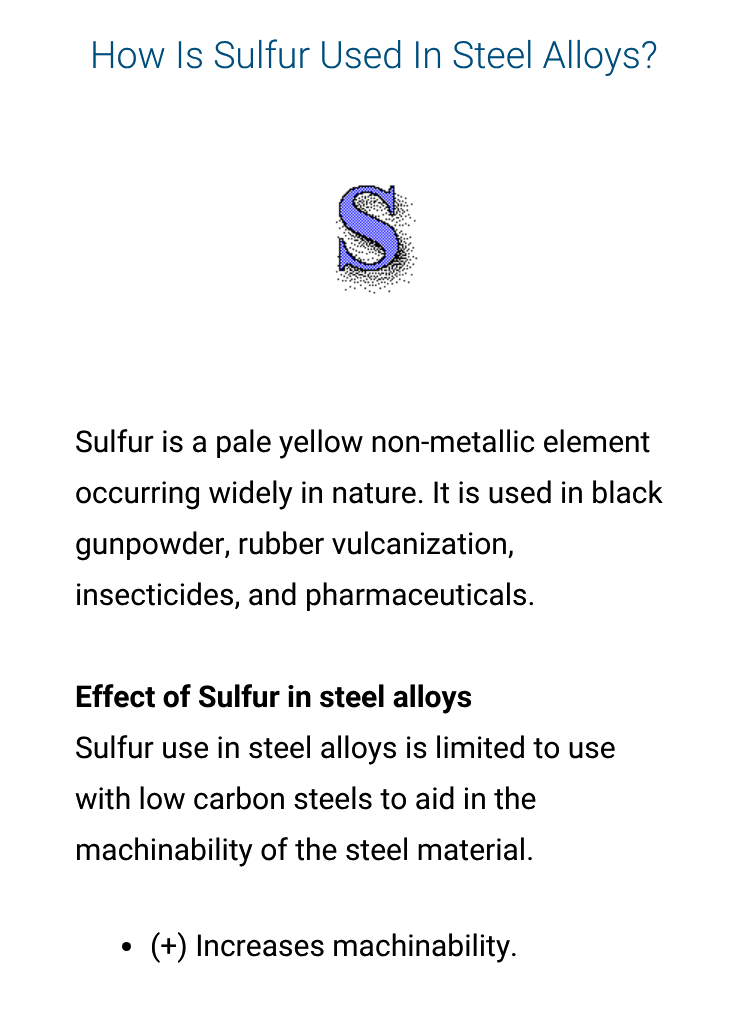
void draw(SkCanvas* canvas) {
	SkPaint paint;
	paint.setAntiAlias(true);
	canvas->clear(0xffffffff);
	SkFont f1(fontMgr->matchFamilyStyle("Roboto", SkFontStyle(300, SkFontStyle::kNormal_Width, SkFontStyle::kUpright_Slant)), 37.5);
	f1.setSubpixel(true);
	paint.setColor(0xff004e7d);
	canvas->drawString("How Is Sulfur Used In Steel Alloys?", 90, 68, f1, paint);
	canvas->drawImageRect(SkImages::DeferredFromEncodedData(SkData::MakeFromFileName("img1.png")), SkRect::MakeXYWH(335, 185, 83, 109), SkSamplingOptions());
	SkFont f2(fontMgr->matchFamilyStyle("Roboto", SkFontStyle::Normal()), 30);
	f2.setSubpixel(true);
	paint.setColor(0xff000000);
	canvas->drawString("Sulfur is a pale yellow non-metallic element", 75, 452, f2, paint);
	canvas->drawString("occurring widely in nature. It is used in black", 75, 503, f2, paint);
	canvas->drawString("gunpowder, rubber vulcanization,", 75, 554, f2, paint);
	canvas->drawString("insecticides, and pharmaceuticals.", 75, 605, f2, paint);
	SkFont f3(fontMgr->matchFamilyStyle("Roboto", SkFontStyle::Bold()), 30);
	f3.setSubpixel(true);
	canvas->drawString("Effect of Sulfur in steel alloys", 75, 707, f3, paint);
	canvas->drawString("Sulfur use in steel alloys is limited to use", 75, 758, f2, paint);
	canvas->drawString("with low carbon steels to aid in the", 75, 809, f2, paint);
	canvas->drawString("machinability of the steel material.", 75, 860, f2, paint);
	canvas->drawCircle(126.5, 946.5, 4.5, paint);
	canvas->drawString("(+) Increases machinability.", 150, 956, f2, paint);
}
